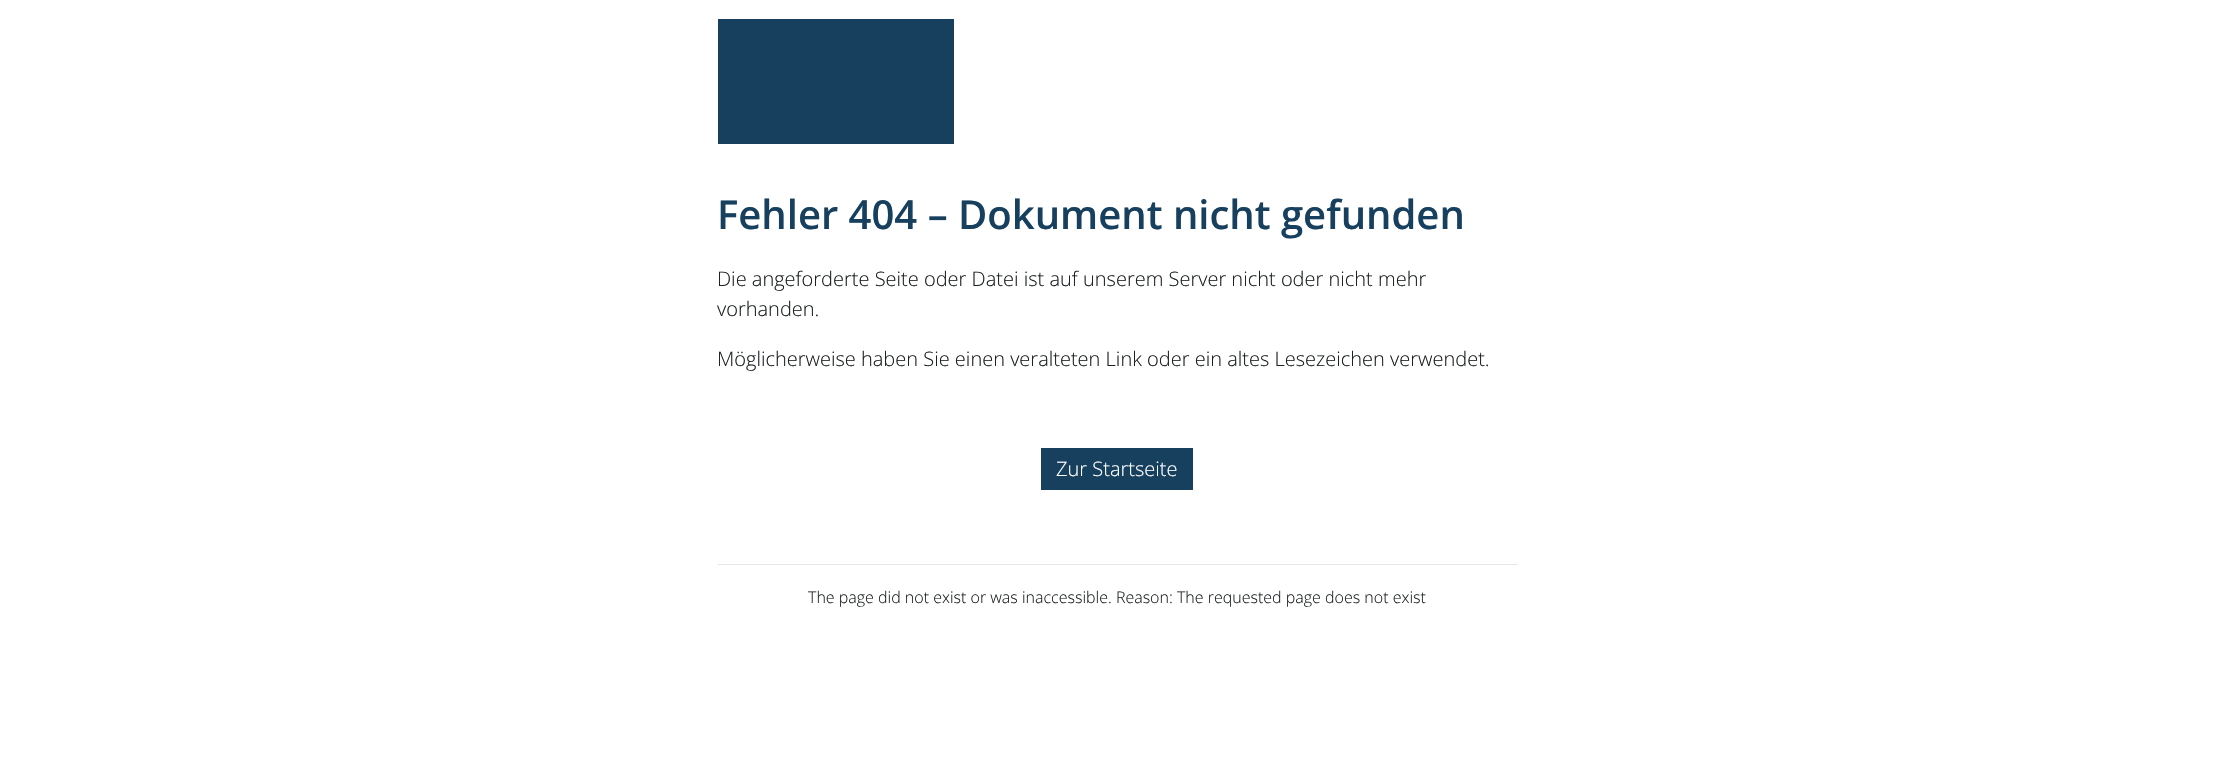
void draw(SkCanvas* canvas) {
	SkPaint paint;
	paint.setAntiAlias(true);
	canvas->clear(0xffffffff);
	paint.setColor(0xff17405e);
	canvas->drawRect(SkRect::MakeXYWH(718, 19, 236, 125), paint);
	SkFont f1(fontMgr->matchFamilyStyle("Open Sans", SkFontStyle(600, SkFontStyle::kNormal_Width, SkFontStyle::kUpright_Slant)), 40);
	f1.setSubpixel(true);
	canvas->drawString("Fehler 404 – Dokument nicht gefunden", 717, 229, f1, paint);
	SkFont f2(fontMgr->matchFamilyStyle("Open Sans", SkFontStyle(300, SkFontStyle::kNormal_Width, SkFontStyle::kUpright_Slant)), 20);
	f2.setSubpixel(true);
	paint.setColor(0xff1c2022);
	canvas->drawString("Die angeforderte Seite oder Datei ist auf unserem Server nicht oder nicht mehr", 717, 286, f2, paint);
	canvas->drawString("vorhanden.", 717, 316, f2, paint);
	canvas->drawString("Möglicherweise haben Sie einen veralteten Link oder ein altes Lesezeichen verwendet.", 717, 366, f2, paint);
	paint.setColor(0xff17405e);
	canvas->drawRect(SkRect::MakeXYWH(1041, 448, 152, 42), paint);
	paint.setColor(0xffffffff);
	canvas->drawString("Zur Startseite", 1056, 476, f2, paint);
	paint.setColor(0xffe6e6e6);
	canvas->drawRect(SkRect::MakeXYWH(718, 564, 800, 1), paint);
	SkFont f3(fontMgr->matchFamilyStyle("Open Sans", SkFontStyle(300, SkFontStyle::kNormal_Width, SkFontStyle::kUpright_Slant)), 16);
	f3.setSubpixel(true);
	paint.setColor(0xff1c2022);
	canvas->drawString("The page did not exist or was inaccessible. Reason: The requested page does not exist", 808, 603, f3, paint);
}
